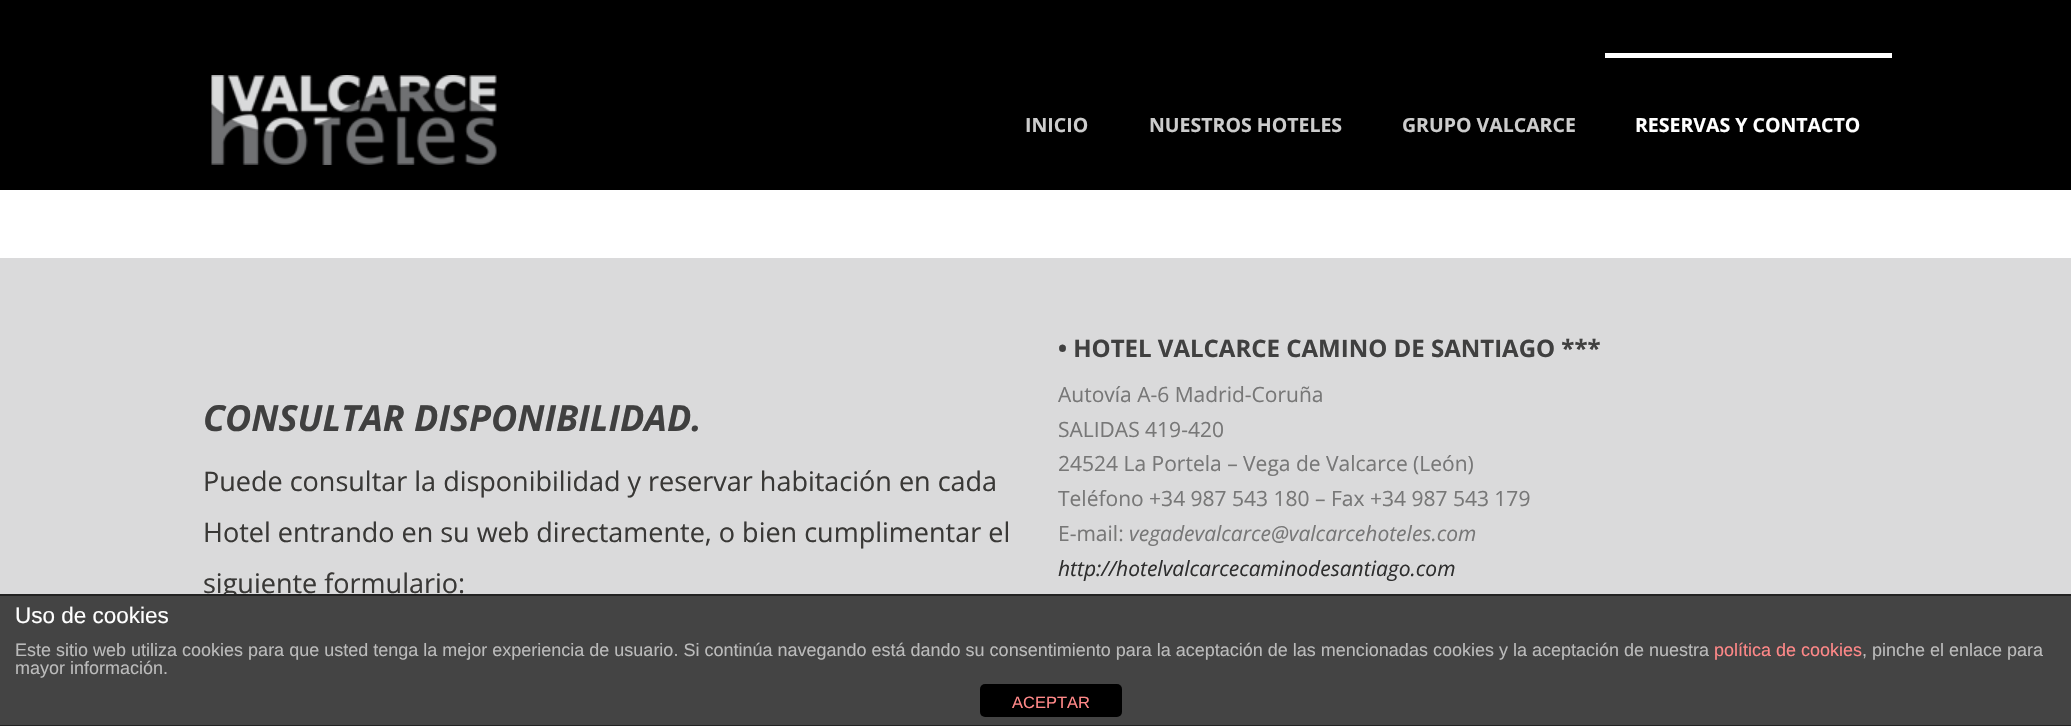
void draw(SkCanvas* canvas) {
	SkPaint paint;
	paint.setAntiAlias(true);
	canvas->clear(0xffffffff);
	paint.setColor(0xff000000);
	canvas->drawRect(SkRect::MakeXYWH(0, 0, 2071, 190), paint);
	canvas->drawImageRect(SkImages::DeferredFromEncodedData(SkData::MakeFromFileName("img1.png")), SkRect::MakeXYWH(211, 75, 286, 90), SkSamplingOptions());
	SkFont f1(fontMgr->matchFamilyStyle("Open Sans", SkFontStyle::Bold()), 19.5);
	f1.setSubpixel(true);
	paint.setColor(0xffcccccc);
	canvas->drawString("INICIO", 1025, 132, f1, paint);
	canvas->drawString("NUESTROS HOTELES", 1149, 132, f1, paint);
	canvas->drawString("GRUPO VALCARCE", 1402, 132, f1, paint);
	paint.setColor(0xffffffff);
	canvas->drawRect(SkRect::MakeXYWH(1605, 53, 287, 5), paint);
	canvas->drawString("RESERVAS Y CONTACTO", 1635, 132, f1, paint);
	paint.setColor(0xffdadadb);
	canvas->drawRect(SkRect::MakeXYWH(0, 258, 2071, 336), paint);
	SkFont f2(fontMgr->matchFamilyStyle("Open Sans", SkFontStyle::BoldItalic()), 36);
	f2.setSubpixel(true);
	paint.setColor(0xff404040);
	canvas->drawString("CONSULTAR DISPONIBILIDAD.", 203, 431, f2, paint);
	SkFont f3(fontMgr->matchFamilyStyle("Open Sans", SkFontStyle::Normal()), 27);
	f3.setSubpixel(true);
	paint.setColor(0xff393836);
	canvas->drawString("Puede consultar la disponibilidad y reservar habitación en cada", 203, 491, f3, paint);
	canvas->drawString("Hotel entrando en su web directamente, o bien cumplimentar el", 203, 542, f3, paint);
	canvas->drawString("siguiente formulario:", 203, 593, f3, paint);
	SkFont f4(fontMgr->matchFamilyStyle("Open Sans", SkFontStyle::Bold()), 24);
	f4.setSubpixel(true);
	paint.setColor(0xff404040);
	canvas->drawString("• HOTEL VALCARCE CAMINO DE SANTIAGO ***", 1058, 357, f4, paint);
	SkFont f5(fontMgr->matchFamilyStyle("Open Sans", SkFontStyle::Normal()), 21);
	f5.setSubpixel(true);
	paint.setColor(0xff777777);
	canvas->drawString("Autovía A-6 Madrid-Coruña", 1058, 402, f5, paint);
	canvas->drawString("SALIDAS 419-420", 1058, 437, f5, paint);
	canvas->drawString("24524 La Portela – Vega de Valcarce (León)", 1058, 471, f5, paint);
	canvas->drawString("Teléfono +34 987 543 180 – Fax +34 987 543 179", 1058, 506, f5, paint);
	canvas->drawString("E-mail:", 1058, 541, f5, paint);
	SkFont f6(fontMgr->matchFamilyStyle("Open Sans", SkFontStyle::Italic()), 21);
	f6.setSubpixel(true);
	canvas->drawString("vegadevalcarce@valcarcehoteles.com", 1129, 541, f6, paint);
	paint.setColor(0xff2e2e2e);
	canvas->drawString("http://hotelvalcarcecaminodesantiago.com", 1058, 576, f6, paint);
	paint.setColor(0xff444444);
	canvas->drawRect(SkRect::MakeXYWH(0, 596, 2071, 129), paint);
	paint.setColor(0xff222222);
	canvas->drawRect(SkRect::MakeXYWH(0, 594, 2071, 2), paint);
	canvas->drawRect(SkRect::MakeXYWH(0, 725, 2071, 1), paint);
	SkFont f7(fontMgr->matchFamilyStyle("Liberation Sans", SkFontStyle::Normal()), 22.5);
	f7.setSubpixel(true);
	paint.setColor(0xffffffff);
	canvas->drawString("Uso de cookies", 15, 623, f7, paint);
	SkFont f8(fontMgr->matchFamilyStyle("Liberation Sans", SkFontStyle::Normal()), 18);
	f8.setSubpixel(true);
	paint.setColor(0xffbbbbbb);
	canvas->drawString("Este sitio web utiliza cookies para que usted tenga la mejor experiencia de usuario. Si continúa navegando está dando su consentimiento para la aceptación de las mencionadas cookies y la aceptación de nuestra", 15, 656, f8, paint);
	paint.setColor(0xffff8888);
	canvas->drawString("política de cookies", 1714, 656, f8, paint);
	paint.setColor(0xffbbbbbb);
	canvas->drawString(", pinche el enlace para", 1862, 656, f8, paint);
	canvas->drawString("mayor información.", 15, 674, f8, paint);
	paint.setColor(0xff000000);
	canvas->drawRoundRect(SkRect::MakeXYWH(980, 684, 142, 33), 5, 5, paint);
	SkFont f9(fontMgr->matchFamilyStyle("Liberation Sans", SkFontStyle::Normal()), 16.5);
	f9.setSubpixel(true);
	paint.setColor(0xffff8888);
	canvas->drawString("ACEPTAR", 1012, 708, f9, paint);
}
